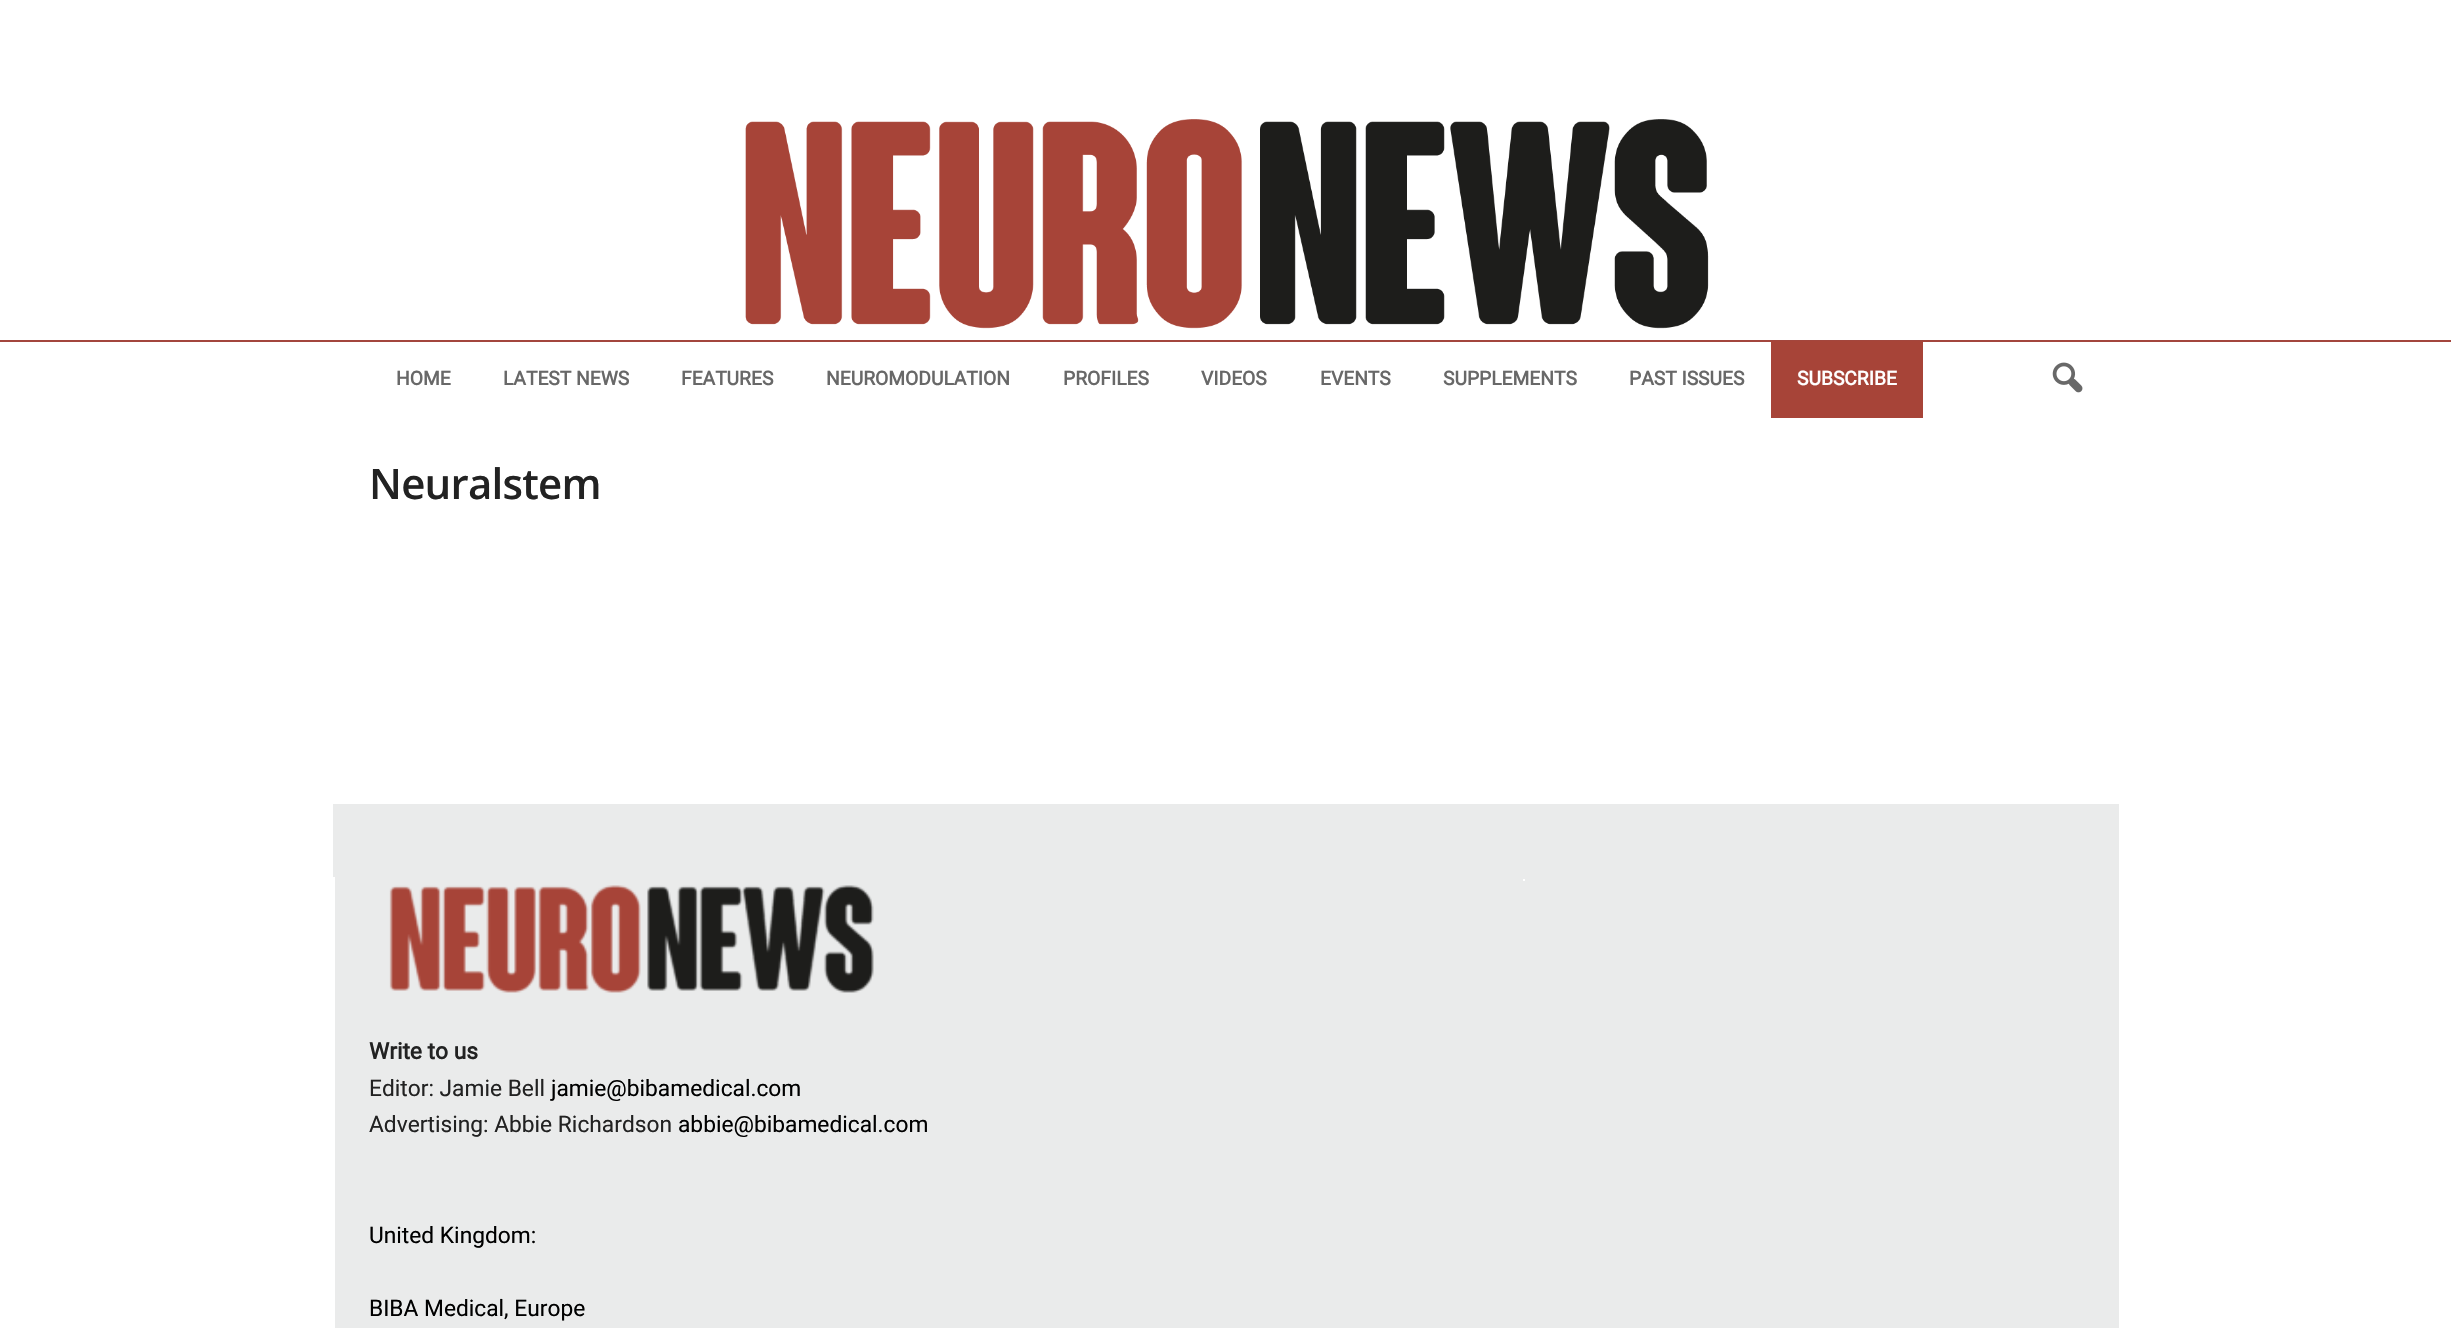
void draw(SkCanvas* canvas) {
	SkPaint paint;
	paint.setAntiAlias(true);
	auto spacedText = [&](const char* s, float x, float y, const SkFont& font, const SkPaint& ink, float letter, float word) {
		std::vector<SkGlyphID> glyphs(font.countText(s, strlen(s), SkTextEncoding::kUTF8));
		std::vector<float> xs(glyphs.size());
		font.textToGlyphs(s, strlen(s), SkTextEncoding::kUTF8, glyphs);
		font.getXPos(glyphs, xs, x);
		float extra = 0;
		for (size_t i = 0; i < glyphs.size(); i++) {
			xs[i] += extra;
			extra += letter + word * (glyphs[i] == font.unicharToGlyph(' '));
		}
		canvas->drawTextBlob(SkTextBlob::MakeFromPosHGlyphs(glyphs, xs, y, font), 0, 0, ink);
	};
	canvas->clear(0xffffffff);
	canvas->drawImageRect(SkImages::DeferredFromEncodedData(SkData::MakeFromFileName("img1.png")), SkRect::MakeXYWH(745, 119, 964, 210), SkSamplingOptions());
	paint.setColor(0xffa3463d);
	canvas->drawRect(SkRect::MakeXYWH(0, 340, 2451, 2), paint);
	SkFont f1(fontMgr->matchFamilyStyle("Roboto", SkFontStyle::Bold()), 19.25);
	f1.setSubpixel(true);
	paint.setColor(0xff686868);
	canvas->drawString("HOME", 396, 385, f1, paint);
	canvas->drawString("LATEST NEWS", 503, 385, f1, paint);
	canvas->drawString("FEATURES", 681, 385, f1, paint);
	canvas->drawString("NEUROMODULATION", 826, 385, f1, paint);
	canvas->drawString("PROFILES", 1063, 385, f1, paint);
	canvas->drawString("VIDEOS", 1201, 385, f1, paint);
	canvas->drawString("EVENTS", 1320, 385, f1, paint);
	canvas->drawString("SUPPLEMENTS", 1443, 385, f1, paint);
	canvas->drawString("PAST ISSUES", 1629, 385, f1, paint);
	paint.setColor(0xffa74438);
	canvas->drawRect(SkRect::MakeXYWH(1771, 341, 152, 77), paint);
	paint.setColor(0xffffffff);
	canvas->drawString("SUBSCRIBE", 1797, 385, f1, paint);
	canvas->drawImageRect(SkImages::DeferredFromEncodedData(SkData::MakeFromFileName("img2.png")), SkRect::MakeXYWH(2052, 362, 31, 31), SkSamplingOptions());
	SkFont f2(fontMgr->matchFamilyStyle("Open Sans", SkFontStyle(600, SkFontStyle::kNormal_Width, SkFontStyle::kUpright_Slant)), 42);
	f2.setSubpixel(true);
	paint.setColor(0xff222222);
	spacedText("Neuralstem", 369, 499, f2, paint, -0.75, 0);
	paint.setColor(0xffeaebeb);
	canvas->drawRect(SkRect::MakeXYWH(333, 804, 1786, 524), paint);
	paint.setColor(0xffffffff);
	canvas->drawRect(SkRect::MakeXYWH(333, 877, 2, 451), paint);
	canvas->drawRect(SkRect::MakeXYWH(1523, 879, 2, 2), paint);
	canvas->drawImageRect(SkImages::DeferredFromEncodedData(SkData::MakeFromFileName("img3.png")), SkRect::MakeXYWH(389, 885, 485, 108), SkSamplingOptions());
	SkFont f3(fontMgr->matchFamilyStyle("Roboto", SkFontStyle::Bold()), 22.75);
	f3.setSubpixel(true);
	paint.setColor(0xff222222);
	canvas->drawString("Write to us", 369, 1059, f3, paint);
	SkFont f4(fontMgr->matchFamilyStyle("Roboto", SkFontStyle::Normal()), 22.75);
	f4.setSubpixel(true);
	canvas->drawString("Editor: Jamie Bell", 369, 1096, f4, paint);
	paint.setColor(0xff000000);
	canvas->drawString("jamie@bibamedical.com", 551, 1096, f4, paint);
	paint.setColor(0xff222222);
	canvas->drawString("Advertising: Abbie Richardson", 369, 1132, f4, paint);
	paint.setColor(0xff000000);
	canvas->drawString("abbie@bibamedical.com", 678, 1132, f4, paint);
	canvas->drawString("United Kingdom:", 369, 1243, f4, paint);
	canvas->drawString("BIBA Medical, Europe", 369, 1316, f4, paint);
}
